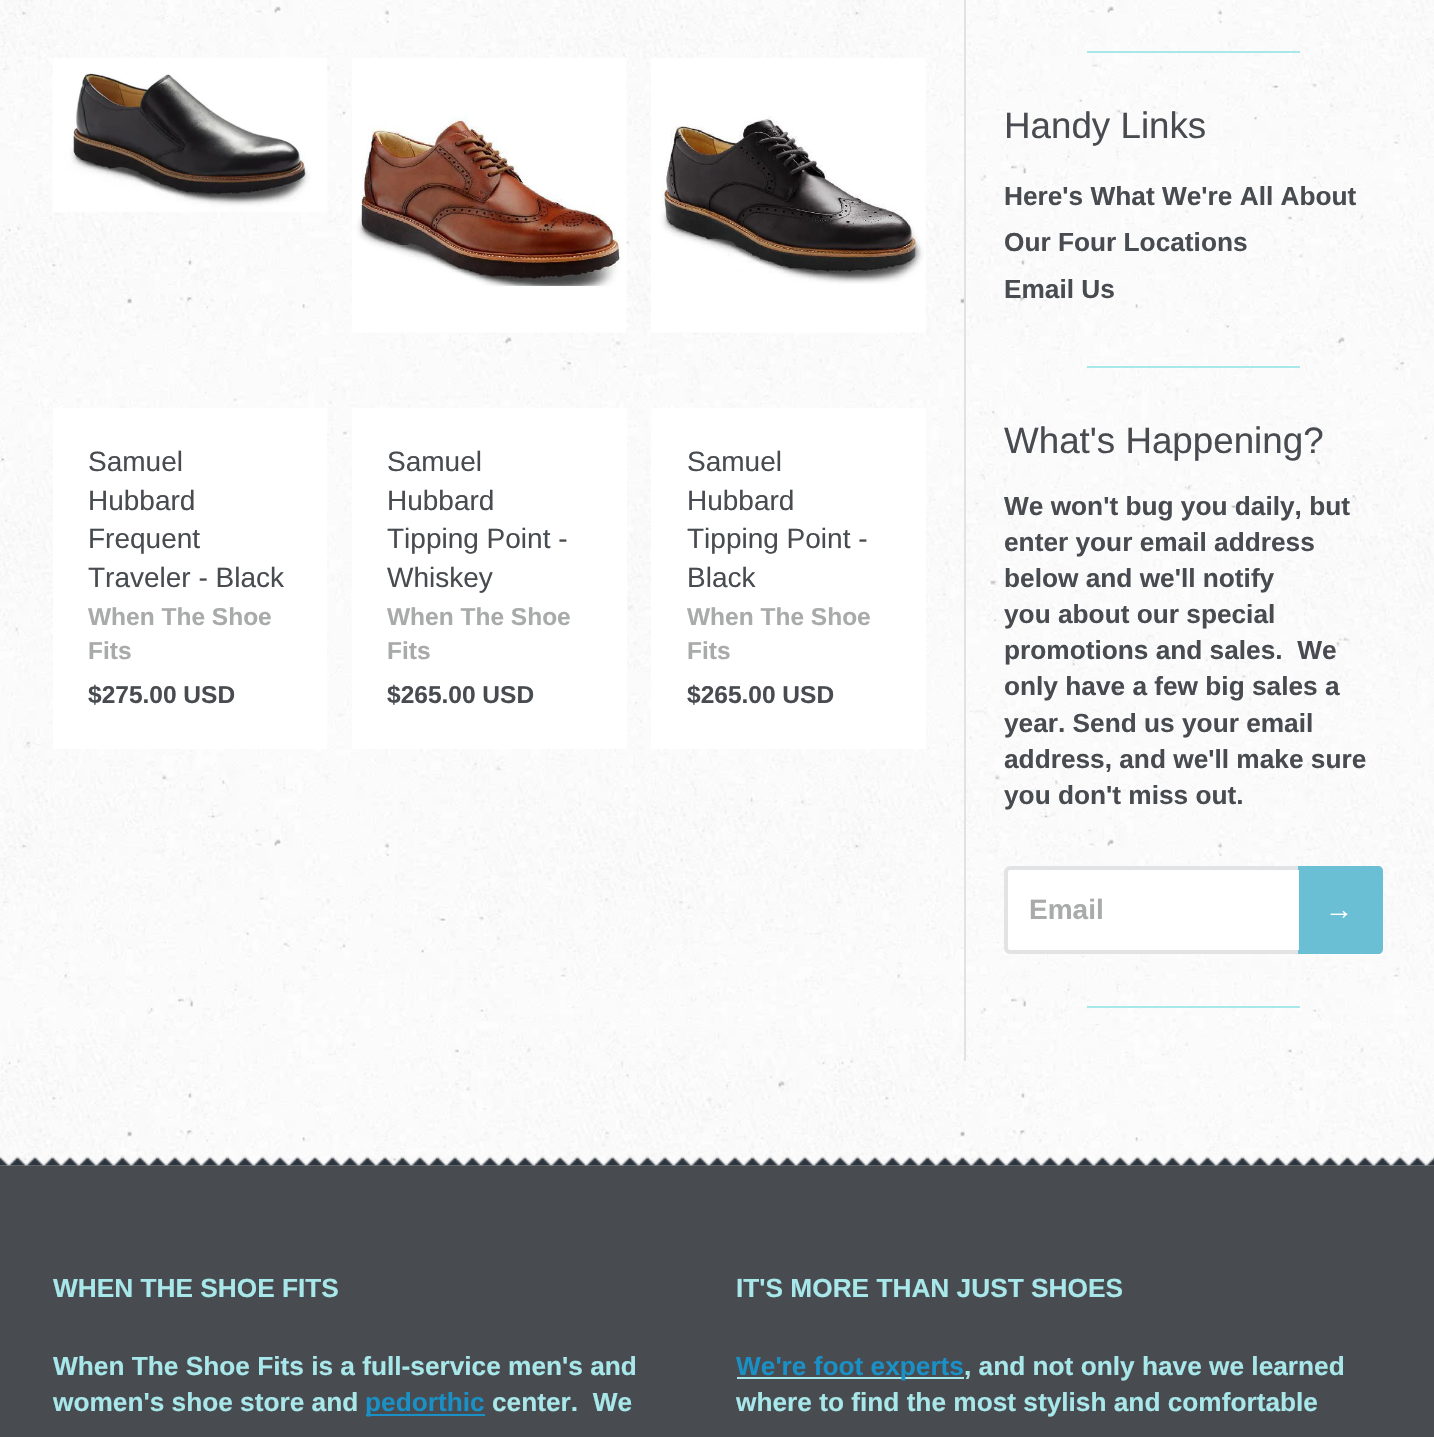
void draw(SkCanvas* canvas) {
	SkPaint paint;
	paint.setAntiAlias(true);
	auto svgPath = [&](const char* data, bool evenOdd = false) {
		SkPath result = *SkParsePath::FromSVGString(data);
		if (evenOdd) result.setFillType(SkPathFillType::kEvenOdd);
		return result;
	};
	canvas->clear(0xff302e2f);
	canvas->drawImageRect(SkImages::DeferredFromEncodedData(SkData::MakeFromFileName("img1.png")), SkRect::MakeXYWH(0, 0, 1434, 1166), SkSamplingOptions());
	canvas->drawImageRect(SkImages::DeferredFromEncodedData(SkData::MakeFromFileName("img2.png")), SkRect::MakeXYWH(0, 1156, 1434, 10), SkSamplingOptions());
	canvas->drawImageRect(SkImages::DeferredFromEncodedData(SkData::MakeFromFileName("img3.png")), SkRect::MakeXYWH(52, 58, 276, 154), SkSamplingOptions());
	paint.setColor(0xffffffff);
	canvas->drawRect(SkRect::MakeXYWH(53, 408, 274, 341), paint);
	SkFont f1(fontMgr->matchFamilyStyle("Liberation Sans", SkFontStyle::Normal()), 28);
	f1.setSubpixel(true);
	paint.setColor(0xff484b4f);
	canvas->drawString("Samuel", 88, 471, f1, paint);
	canvas->drawString("Hubbard", 88, 510, f1, paint);
	canvas->drawString("Frequent", 88, 548, f1, paint);
	canvas->drawString("Traveler - Black", 88, 587, f1, paint);
	SkFont f2(fontMgr->matchFamilyStyle("Liberation Sans", SkFontStyle::Bold()), 24.5);
	f2.setSubpixel(true);
	paint.setColor(0xffa9aaaa);
	canvas->drawString("When The Shoe", 88, 625, f2, paint);
	canvas->drawString("Fits", 88, 659, f2, paint);
	paint.setColor(0xff484b4f);
	canvas->drawString("$275.00 USD", 88, 703, f2, paint);
	canvas->drawImageRect(SkImages::DeferredFromEncodedData(SkData::MakeFromFileName("img4.png")), SkRect::MakeXYWH(352, 58, 275, 275), SkSamplingOptions());
	paint.setColor(0xffffffff);
	canvas->drawRect(SkRect::MakeXYWH(352, 408, 275, 341), paint);
	paint.setColor(0xff484b4f);
	canvas->drawString("Samuel", 387, 471, f1, paint);
	canvas->drawString("Hubbard", 387, 510, f1, paint);
	canvas->drawString("Tipping Point -", 387, 548, f1, paint);
	canvas->drawString("Whiskey", 387, 587, f1, paint);
	paint.setColor(0xffa9aaaa);
	canvas->drawString("When The Shoe", 387, 625, f2, paint);
	canvas->drawString("Fits", 387, 659, f2, paint);
	paint.setColor(0xff484b4f);
	canvas->drawString("$265.00 USD", 387, 703, f2, paint);
	canvas->drawImageRect(SkImages::DeferredFromEncodedData(SkData::MakeFromFileName("img5.png")), SkRect::MakeXYWH(651, 58, 275, 275), SkSamplingOptions());
	paint.setColor(0xffffffff);
	canvas->drawRect(SkRect::MakeXYWH(651, 408, 275, 341), paint);
	paint.setColor(0xff484b4f);
	canvas->drawString("Samuel", 687, 471, f1, paint);
	canvas->drawString("Hubbard", 687, 510, f1, paint);
	canvas->drawString("Tipping Point -", 687, 548, f1, paint);
	canvas->drawString("Black", 687, 587, f1, paint);
	paint.setColor(0xffa9aaaa);
	canvas->drawString("When The Shoe", 687, 625, f2, paint);
	canvas->drawString("Fits", 687, 659, f2, paint);
	paint.setColor(0xff484b4f);
	canvas->drawString("$265.00 USD", 687, 703, f2, paint);
	paint.setColor(0xffe1e2e3);
	canvas->drawRect(SkRect::MakeXYWH(964, 0, 2, 1061), paint);
	paint.setColor(0xffa8e7ea);
	canvas->drawRect(SkRect::MakeXYWH(1087, 51, 213, 2), paint);
	SkFont f3(fontMgr->matchFamilyStyle("Liberation Sans", SkFontStyle::Normal()), 36.75);
	f3.setSubpixel(true);
	paint.setColor(0xff484b4f);
	canvas->drawString("Handy Links", 1004, 138, f3, paint);
	SkFont f4(fontMgr->matchFamilyStyle("Liberation Sans", SkFontStyle::Bold()), 26.25);
	f4.setSubpixel(true);
	canvas->drawString("Here's What We're All About", 1004, 205, f4, paint);
	canvas->drawString("Our Four Locations", 1004, 251, f4, paint);
	canvas->drawString("Email Us", 1004, 298, f4, paint);
	paint.setColor(0xffa8e7ea);
	canvas->drawRect(SkRect::MakeXYWH(1087, 366, 213, 2), paint);
	paint.setColor(0xff484b4f);
	canvas->drawString("What's Happening?", 1004, 453, f3, paint);
	canvas->drawString("We won't bug you daily, but", 1004, 515, f4, paint);
	canvas->drawString("enter your email address", 1004, 551, f4, paint);
	canvas->drawString("below and we'll notify", 1004, 587, f4, paint);
	canvas->drawString("you about our special", 1004, 623, f4, paint);
	canvas->drawString("promotions and sales.  We", 1004, 659, f4, paint);
	canvas->drawString("only have a few big sales a", 1004, 695, f4, paint);
	canvas->drawString("year. Send us your email", 1004, 732, f4, paint);
	canvas->drawString("address, and we'll make sure", 1004, 768, f4, paint);
	canvas->drawString("you don't miss out.", 1004, 804, f4, paint);
	paint.setColor(0xffffffff);
	canvas->drawPath(svgPath("M1010 866H1299V954H1010C1007 954 1005 952 1005 949V871C1005 868 1007 866 1010 866Z"), paint);
	paint.setColor(0xffe1e3e4);
	canvas->drawPath(svgPath("M1010 866H1298V954H1010C1007 954 1004 951 1004 948V872C1004 869 1007 866 1010 866ZM1010 870H1298V950H1010C1009 950 1008 949 1008 948V872C1008 871 1009 870 1010 870Z", true), paint);
	SkFont f5(fontMgr->matchFamilyStyle("Liberation Sans", SkFontStyle::Bold()), 28);
	f5.setSubpixel(true);
	paint.setColor(0xffa9aaaa);
	canvas->drawString("Email", 1029, 919, f5, paint);
	paint.setColor(0xff6bbfd5);
	canvas->drawPath(svgPath("M1299 866H1378C1381 866 1383 868 1383 871V949C1383 952 1381 954 1378 954H1299Z"), paint);
	canvas->drawPath(svgPath("M1298 866H1377C1380 866 1382 869 1382 872V948C1382 951 1380 954 1377 954H1298ZM1298 870H1377C1378 870 1379 871 1379 872V948C1379 949 1378 950 1377 950H1298Z", true), paint);
	paint.setColor(0xffffffff);
	canvas->drawString("→", 1325, 919, f5, paint);
	paint.setColor(0xffa8e7ea);
	canvas->drawRect(SkRect::MakeXYWH(1087, 1006, 213, 2), paint);
	paint.setColor(0xff484b4f);
	canvas->drawRect(SkRect::MakeXYWH(0, 1166, 1434, 271), paint);
	paint.setColor(0xffa8e7ea);
	canvas->drawString("WHEN THE SHOE FITS", 53, 1297, f4, paint);
	canvas->drawString("When The Shoe Fits is a full-service men's and", 53, 1375, f4, paint);
	canvas->drawString("women's shoe store and", 53, 1411, f4, paint);
	paint.setColor(0xff1990c6);
	canvas->drawRect(SkRect::MakeXYWH(366, 1414, 119, 2), paint);
	canvas->drawString("pedorthic", 365, 1411, f4, paint);
	paint.setColor(0xffa8e7ea);
	canvas->drawString("center.  We", 492, 1411, f4, paint);
	canvas->drawString("IT'S MORE THAN JUST SHOES", 736, 1297, f4, paint);
	canvas->drawRect(SkRect::MakeXYWH(737, 1377, 227, 2), paint);
	paint.setColor(0xff1990c6);
	canvas->drawString("We're foot experts", 736, 1375, f4, paint);
	paint.setColor(0xffa8e7ea);
	canvas->drawString(", and not only have we learned", 964, 1375, f4, paint);
	canvas->drawString("where to find the most stylish and comfortable", 736, 1411, f4, paint);
}
